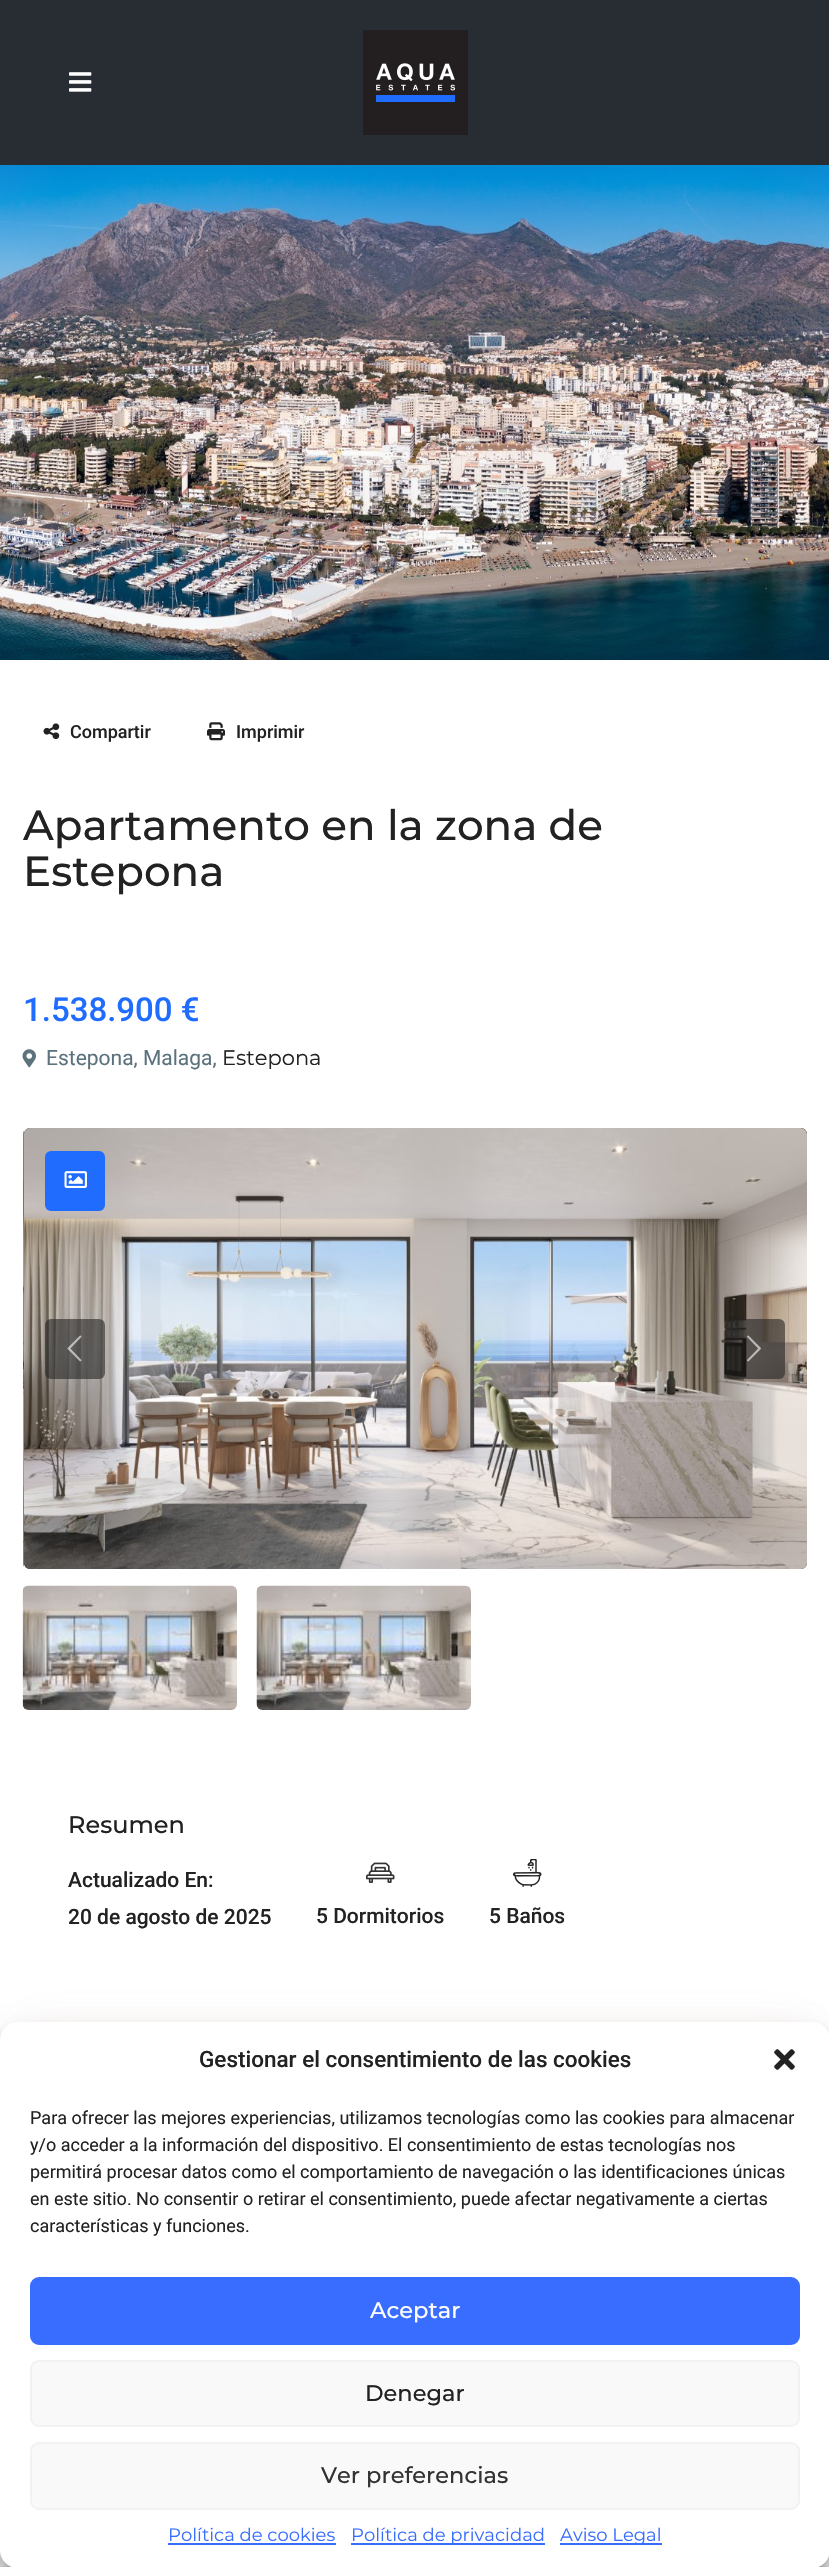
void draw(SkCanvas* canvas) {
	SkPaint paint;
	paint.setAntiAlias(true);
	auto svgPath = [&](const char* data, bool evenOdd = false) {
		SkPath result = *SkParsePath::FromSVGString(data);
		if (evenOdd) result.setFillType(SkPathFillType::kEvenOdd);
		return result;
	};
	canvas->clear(0xffffffff);
	paint.setColor(0xff282d33);
	canvas->drawRect(SkRect::MakeXYWH(0, 0, 829, 165), paint);
	canvas->drawImageRect(SkImages::DeferredFromEncodedData(SkData::MakeFromFileName("img1.png")), SkRect::MakeXYWH(69, 72, 23, 20), SkSamplingOptions());
	canvas->drawImageRect(SkImages::DeferredFromEncodedData(SkData::MakeFromFileName("img2.png")), SkRect::MakeXYWH(363, 30, 105, 105), SkSamplingOptions());
	canvas->drawImageRect(SkImages::DeferredFromEncodedData(SkData::MakeFromFileName("img3.png")), SkRect::MakeXYWH(0, 165, 829, 495), SkSamplingOptions());
	canvas->drawImageRect(SkImages::DeferredFromEncodedData(SkData::MakeFromFileName("img4.png")), SkRect::MakeXYWH(43, 723, 17, 17), SkSamplingOptions());
	SkFont f1(fontMgr->matchFamilyStyle("Roboto", SkFontStyle(500, SkFontStyle::kNormal_Width, SkFontStyle::kUpright_Slant)), 18);
	f1.setSubpixel(true);
	paint.setColor(0xff222222);
	canvas->drawString("Compartir", 70, 738, f1, paint);
	canvas->drawImageRect(SkImages::DeferredFromEncodedData(SkData::MakeFromFileName("img5.png")), SkRect::MakeXYWH(207, 722, 18, 19), SkSamplingOptions());
	canvas->drawString("Imprimir", 236, 738, f1, paint);
	SkFont f2(fontMgr->matchFamilyStyle("Montserrat", SkFontStyle(500, SkFontStyle::kNormal_Width, SkFontStyle::kUpright_Slant)), 42);
	f2.setSubpixel(true);
	canvas->drawString("Apartamento en la zona de", 23, 840, f2, paint);
	canvas->drawString("Estepona", 23, 886, f2, paint);
	SkFont f3(fontMgr->matchFamilyStyle("Roboto", SkFontStyle(500, SkFontStyle::kNormal_Width, SkFontStyle::kUpright_Slant)), 33);
	f3.setSubpixel(true);
	paint.setColor(0xff1f6cff);
	canvas->drawString("1.538.900 €", 23, 1021, f3, paint);
	canvas->drawImageRect(SkImages::DeferredFromEncodedData(SkData::MakeFromFileName("img6.png")), SkRect::MakeXYWH(22, 1049, 14, 19), SkSamplingOptions());
	SkFont f4(fontMgr->matchFamilyStyle("Roboto", SkFontStyle::Normal()), 21);
	f4.setSubpixel(true);
	paint.setColor(0xff5c727d);
	canvas->drawString("Estepona, Malaga,", 46, 1065, f4, paint);
	SkFont f5(fontMgr->matchFamilyStyle("Montserrat", SkFontStyle::Normal()), 21);
	f5.setSubpixel(true);
	paint.setColor(0xff222222);
	canvas->drawString("Estepona", 222, 1065, f5, paint);
	canvas->save();
	canvas->clipPath(svgPath("M29 1128H801C804.5 1128 807 1130.5 807 1134V1715C807 1718.5 804.5 1721 801 1721H29C25.5 1721 23 1718.5 23 1715V1134C23 1130.5 25.5 1128 29 1128Z"), true);
	canvas->drawPath(svgPath("M23 1128H18C21.5 1128 24 1130.5 24 1134V1563C24 1566.5 21.5 1569 18 1569H23Z"), paint);
	canvas->restore();
	canvas->drawImageRect(SkImages::DeferredFromEncodedData(SkData::MakeFromFileName("img7.png")), SkRect::MakeXYWH(23, 1132, 2, 435), SkSamplingOptions());
	canvas->drawRoundRect(SkRect::MakeXYWH(24, 1128, 783, 441), 6, 6, paint);
	canvas->drawImageRect(SkImages::DeferredFromEncodedData(SkData::MakeFromFileName("img8.png")), SkRect::MakeXYWH(24, 1128, 783, 441), SkSamplingOptions());
	paint.setColor(0x96222222);
	canvas->drawRoundRect(SkRect::MakeXYWH(45, 1319, 60, 60), 6, 6, paint);
	canvas->drawImageRect(SkImages::DeferredFromEncodedData(SkData::MakeFromFileName("img9.png")), SkRect::MakeXYWH(67, 1335, 15, 27), SkSamplingOptions());
	canvas->drawRoundRect(SkRect::MakeXYWH(725, 1319, 60, 60), 6, 6, paint);
	canvas->drawImageRect(SkImages::DeferredFromEncodedData(SkData::MakeFromFileName("img10.png")), SkRect::MakeXYWH(747, 1335, 14, 27), SkSamplingOptions());
	canvas->drawImageRect(SkImages::DeferredFromEncodedData(SkData::MakeFromFileName("img11.png")), SkRect::MakeXYWH(22, 1585, 215, 125), SkSamplingOptions());
	canvas->drawImageRect(SkImages::DeferredFromEncodedData(SkData::MakeFromFileName("img12.png")), SkRect::MakeXYWH(256, 1585, 215, 125), SkSamplingOptions());
	paint.setColor(0xff1f6cff);
	canvas->drawRoundRect(SkRect::MakeXYWH(45, 1151, 60, 60), 6, 6, paint);
	canvas->drawImageRect(SkImages::DeferredFromEncodedData(SkData::MakeFromFileName("img13.png")), SkRect::MakeXYWH(64, 1171, 23, 17), SkSamplingOptions());
	SkFont f6(fontMgr->matchFamilyStyle("Montserrat", SkFontStyle(500, SkFontStyle::kNormal_Width, SkFontStyle::kUpright_Slant)), 24);
	f6.setSubpixel(true);
	paint.setColor(0xff222222);
	canvas->drawString("Resumen", 68, 1833, f6, paint);
	SkFont f7(fontMgr->matchFamilyStyle("Roboto", SkFontStyle(500, SkFontStyle::kNormal_Width, SkFontStyle::kUpright_Slant)), 21);
	f7.setSubpixel(true);
	canvas->drawString("Actualizado En:", 68, 1887, f7, paint);
	canvas->drawString("20 de agosto de 2025", 68, 1924, f7, paint);
	canvas->drawImageRect(SkImages::DeferredFromEncodedData(SkData::MakeFromFileName("img14.png")), SkRect::MakeXYWH(366, 1862, 29, 21), SkSamplingOptions());
	canvas->drawString("5 Dormitorios", 316, 1923, f7, paint);
	canvas->drawImageRect(SkImages::DeferredFromEncodedData(SkData::MakeFromFileName("img15.png")), SkRect::MakeXYWH(513, 1859, 29, 28), SkSamplingOptions());
	canvas->drawString("5 Baños", 489, 1923, f7, paint);
	paint.setColor(0x17d29781);
	paint.setMaskFilter(SkMaskFilter::MakeBlur(kNormal_SkBlurStyle, 22.5));
	canvas->drawRect(SkRect::MakeXYWH(23, 2028, 784, 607), paint);
	paint.setMaskFilter(nullptr);
	paint.setColor(0xffffffff);
	canvas->drawRect(SkRect::MakeXYWH(2, 2558, 826, 8), paint);
	paint.setStroke(true);
	paint.setStrokeWidth(2);
	paint.setColor(0xfff0f3f7);
	canvas->drawRect(SkRect::MakeXYWH(1, 2476, 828, 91), paint);
	paint.setStroke(false);
	paint.setColor(0x3b000000);
	paint.setMaskFilter(SkMaskFilter::MakeBlur(kNormal_SkBlurStyle, 4.5));
	canvas->drawRoundRect(SkRect::MakeXYWH(0, 2031, 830, 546), 18, 18, paint);
	paint.setMaskFilter(nullptr);
	paint.setColor(0x30000000);
	paint.setMaskFilter(SkMaskFilter::MakeBlur(kNormal_SkBlurStyle, 15));
	canvas->drawRoundRect(SkRect::MakeXYWH(0, 2037, 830, 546), 18, 18, paint);
	paint.setMaskFilter(nullptr);
	paint.setColor(0xffffffff);
	canvas->drawRoundRect(SkRect::MakeXYWH(0, 2022, 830, 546), 18, 18, paint);
	SkFont f8(fontMgr->matchFamilyStyle("Roboto", SkFontStyle(500, SkFontStyle::kNormal_Width, SkFontStyle::kUpright_Slant)), 22.5);
	f8.setSubpixel(true);
	paint.setColor(0xff222222);
	canvas->drawString("Gestionar el consentimiento de las cookies", 199, 2067, f8, paint);
	canvas->drawImageRect(SkImages::DeferredFromEncodedData(SkData::MakeFromFileName("img16.png")), SkRect::MakeXYWH(774, 2049, 21, 21), SkSamplingOptions());
	SkFont f9(fontMgr->matchFamilyStyle("Roboto", SkFontStyle::Normal()), 18);
	f9.setSubpixel(true);
	canvas->drawString("Para ofrecer las mejores experiencias, utilizamos tecnologías como las cookies para almacenar", 30, 2124, f9, paint);
	canvas->drawString("y/o acceder a la información del dispositivo. El consentimiento de estas tecnologías nos", 30, 2151, f9, paint);
	canvas->drawString("permitirá procesar datos como el comportamiento de navegación o las identificaciones únicas", 30, 2178, f9, paint);
	canvas->drawString("en este sitio. No consentir o retirar el consentimiento, puede afectar negativamente a ciertas", 30, 2205, f9, paint);
	canvas->drawString("características y funciones.", 30, 2232, f9, paint);
	paint.setColor(0xff386dff);
	canvas->drawRoundRect(SkRect::MakeXYWH(31, 2278, 768, 66), 8, 8, paint);
	paint.setStroke(true);
	canvas->drawRoundRect(SkRect::MakeXYWH(31, 2278, 768, 66), 8, 8, paint);
	SkFont f10(fontMgr->matchFamilyStyle("Montserrat", SkFontStyle(500, SkFontStyle::kNormal_Width, SkFontStyle::kUpright_Slant)), 22.5);
	f10.setSubpixel(true);
	paint.setStroke(false);
	paint.setColor(0xffffffff);
	canvas->drawString("Aceptar", 370, 2318, f10, paint);
	paint.setColor(0xfff9f9f9);
	canvas->drawRoundRect(SkRect::MakeXYWH(31, 2361, 768, 65), 8, 8, paint);
	paint.setStroke(true);
	paint.setColor(0xfff2f2f2);
	canvas->drawRoundRect(SkRect::MakeXYWH(31, 2361, 768, 65), 8, 8, paint);
	paint.setStroke(false);
	paint.setColor(0xff222222);
	canvas->drawString("Denegar", 365, 2401, f10, paint);
	paint.setColor(0xfff9f9f9);
	canvas->drawRoundRect(SkRect::MakeXYWH(31, 2443, 768, 66), 8, 8, paint);
	paint.setStroke(true);
	paint.setColor(0xfff2f2f2);
	canvas->drawRoundRect(SkRect::MakeXYWH(31, 2443, 768, 66), 8, 8, paint);
	paint.setStroke(false);
	paint.setColor(0xff333333);
	canvas->drawString("Ver preferencias", 321, 2483, f10, paint);
	SkFont f11(fontMgr->matchFamilyStyle("Montserrat", SkFontStyle::Normal()), 18);
	f11.setSubpixel(true);
	paint.setColor(0xff386dff);
	canvas->drawString("Política de cookies", 168, 2541, f11, paint);
	canvas->drawRect(SkRect::MakeXYWH(168, 2543, 168, 2), paint);
	canvas->drawRect(SkRect::MakeXYWH(351, 2543, 194, 2), paint);
	canvas->drawString("Política de privacidad", 351, 2541, f11, paint);
	canvas->drawRect(SkRect::MakeXYWH(560, 2543, 102, 2), paint);
	canvas->drawString("Aviso Legal", 560, 2541, f11, paint);
}
